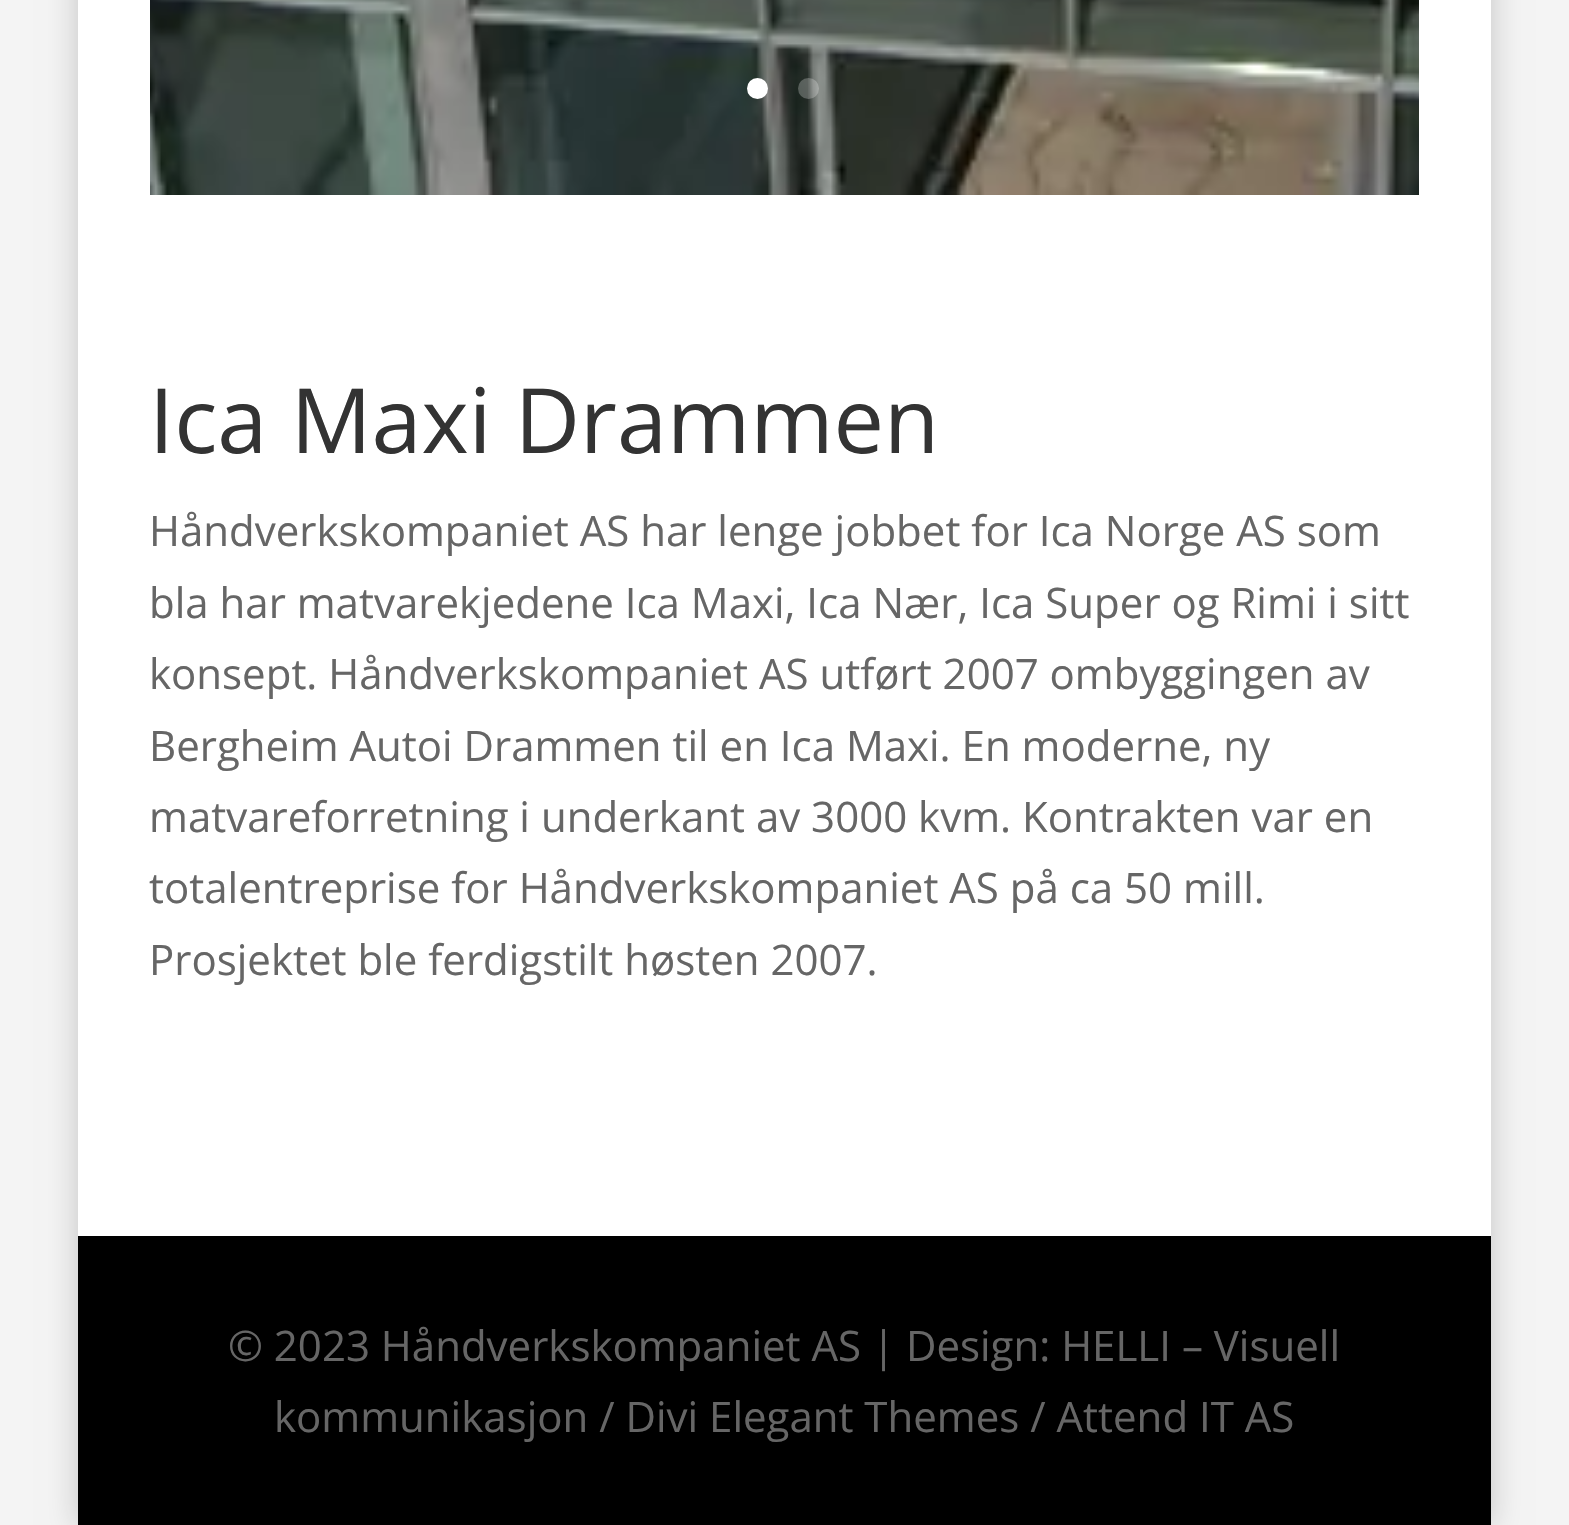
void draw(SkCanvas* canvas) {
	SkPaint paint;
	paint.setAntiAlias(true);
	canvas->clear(0xfff4f4f4);
	paint.setColor(0x33000000);
	paint.setMaskFilter(SkMaskFilter::MakeBlur(kNormal_SkBlurStyle, 15));
	canvas->drawRect(SkRect::MakeXYWH(78, -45, 1413, 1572), paint);
	paint.setMaskFilter(nullptr);
	paint.setColor(0xffffffff);
	canvas->drawRect(SkRect::MakeXYWH(78, 0, 1413, 1236), paint);
	canvas->drawImageRect(SkImages::DeferredFromEncodedData(SkData::MakeFromFileName("img1.png")), SkRect::MakeXYWH(150, 0, 1269, 195), SkSamplingOptions());
	canvas->drawCircle(757.5, 88.5, 10.5, paint);
	paint.setColor(0x40ffffff);
	canvas->drawCircle(808.5, 88.5, 10.5, paint);
	SkFont f1(fontMgr->matchFamilyStyle("Open Sans", SkFontStyle::Normal()), 90);
	f1.setSubpixel(true);
	paint.setColor(0xff333333);
	canvas->drawString("Ica Maxi Drammen", 149, 453, f1, paint);
	SkFont f2(fontMgr->matchFamilyStyle("Open Sans", SkFontStyle::Normal()), 42);
	f2.setSubpixel(true);
	paint.setColor(0xff666666);
	canvas->drawString("Håndverkskompaniet AS har lenge jobbet for Ica Norge AS som", 149, 546, f2, paint);
	canvas->drawString("bla har matvarekjedene Ica Maxi, Ica Nær, Ica Super og Rimi i sitt", 149, 618, f2, paint);
	canvas->drawString("konsept. Håndverkskompaniet AS utført 2007 ombyggingen av", 149, 689, f2, paint);
	canvas->drawString("Bergheim Autoi Drammen til en Ica Maxi. En moderne, ny", 149, 761, f2, paint);
	canvas->drawString("matvareforretning i underkant av 3000 kvm. Kontrakten var en", 149, 832, f2, paint);
	canvas->drawString("totalentreprise for Håndverkskompaniet AS på ca 50 mill.", 149, 903, f2, paint);
	canvas->drawString("Prosjektet ble ferdigstilt høsten 2007.", 149, 975, f2, paint);
	paint.setColor(0xff000000);
	canvas->drawRect(SkRect::MakeXYWH(78, 1236, 1413, 289), paint);
	paint.setColor(0xff666666);
	canvas->drawString("© 2023 Håndverkskompaniet AS | Design: HELLI – Visuell", 228, 1361, f2, paint);
	canvas->drawString("kommunikasjon / Divi Elegant Themes / Attend IT AS", 274, 1432, f2, paint);
}
